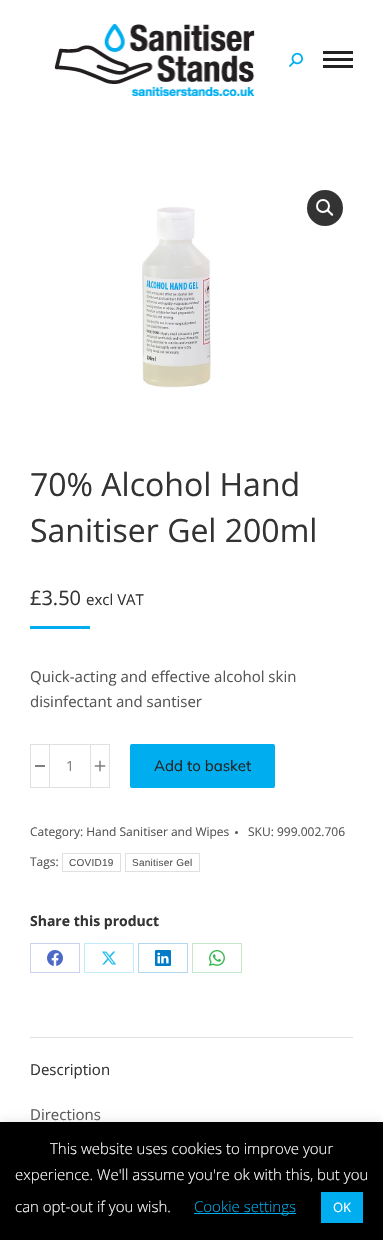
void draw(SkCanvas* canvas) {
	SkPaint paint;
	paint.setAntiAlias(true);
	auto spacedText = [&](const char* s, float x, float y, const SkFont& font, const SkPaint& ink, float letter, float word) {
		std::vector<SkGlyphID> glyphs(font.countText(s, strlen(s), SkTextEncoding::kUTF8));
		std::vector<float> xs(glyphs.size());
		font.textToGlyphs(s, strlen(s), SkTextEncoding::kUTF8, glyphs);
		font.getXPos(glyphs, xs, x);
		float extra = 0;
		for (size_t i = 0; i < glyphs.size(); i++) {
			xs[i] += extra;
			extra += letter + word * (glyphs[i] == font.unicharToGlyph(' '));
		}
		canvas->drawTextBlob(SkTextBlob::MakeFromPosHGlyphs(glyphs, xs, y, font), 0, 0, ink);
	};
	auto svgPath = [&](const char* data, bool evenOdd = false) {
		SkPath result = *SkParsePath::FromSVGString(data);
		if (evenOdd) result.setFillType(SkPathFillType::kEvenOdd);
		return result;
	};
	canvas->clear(0xffffffff);
	canvas->drawImageRect(SkImages::DeferredFromEncodedData(SkData::MakeFromFileName("img1.png")), SkRect::MakeXYWH(54, 24, 201, 72), SkSamplingOptions());
	canvas->drawImageRect(SkImages::DeferredFromEncodedData(SkData::MakeFromFileName("img2.png")), SkRect::MakeXYWH(289, 52, 14, 15), SkSamplingOptions());
	paint.setColor(0xff222222);
	canvas->drawRect(SkRect::MakeXYWH(323, 51, 30, 3), paint);
	canvas->drawRect(SkRect::MakeXYWH(323, 58, 30, 3), paint);
	canvas->drawRect(SkRect::MakeXYWH(323, 65, 30, 3), paint);
	canvas->drawImageRect(SkImages::DeferredFromEncodedData(SkData::MakeFromFileName("img3.png")), SkRect::MakeXYWH(142, 207, 71, 181), SkSamplingOptions());
	paint.setColor(0xff333333);
	canvas->drawCircle(325, 208, 18, paint);
	paint.setStroke(true);
	paint.setStrokeWidth(2);
	paint.setColor(0xffffffff);
	canvas->drawCircle(323, 206, 6, paint);
	paint.setStroke(false);
	canvas->drawPath(svgPath("M327 210C328.5 208.5 330 211.5 330.5 212C331.5 212.5 334 214 333 215.5C331.5 216.5 330 214 329.5 213.5C328.5 212.5 326 211 327 210Z"), paint);
	SkFont f1(fontMgr->matchFamilyStyle("Open Sans", SkFontStyle::Normal()), 32);
	f1.setSubpixel(true);
	paint.setColor(0xff333333);
	canvas->drawString("70% Alcohol Hand", 30, 496, f1, paint);
	canvas->drawString("Sanitiser Gel 200ml", 30, 542, f1, paint);
	SkFont f2(fontMgr->matchFamilyStyle("Open Sans", SkFontStyle::Normal()), 20);
	f2.setSubpixel(true);
	canvas->drawString("£3.50", 30, 605, f2, paint);
	SkFont f3(fontMgr->matchFamilyStyle("Open Sans", SkFontStyle::Normal()), 15);
	f3.setSubpixel(true);
	canvas->drawString("excl VAT", 86, 605, f3, paint);
	paint.setColor(0xff00aeef);
	canvas->drawRect(SkRect::MakeXYWH(30, 626, 60, 3), paint);
	paint.setColor(0xff555555);
	canvas->drawString("Quick-acting and effective alcohol skin", 30, 682, f3, paint);
	canvas->drawString("disinfectant and santiser", 30, 707, f3, paint);
	paint.setStroke(true);
	paint.setStrokeWidth(1);
	paint.setColor(0xffe0e0e0);
	canvas->drawRect(SkRect::MakeXYWH(30.5, 744.5, 19, 43), paint);
	paint.setStroke(false);
	paint.setColor(0xff7f7f7f);
	canvas->drawRect(SkRect::MakeXYWH(35, 765, 10, 2), paint);
	paint.setColor(0xffe0e0e0);
	canvas->drawRect(SkRect::MakeXYWH(50, 744, 40, 1), paint);
	canvas->drawRect(SkRect::MakeXYWH(50, 787, 40, 1), paint);
	SkFont f4(fontMgr->matchFamilyStyle("Open Sans", SkFontStyle::Normal()), 14);
	f4.setSubpixel(true);
	paint.setColor(0xff7f7f7f);
	canvas->drawString("1", 66, 771, f4, paint);
	paint.setStroke(true);
	paint.setColor(0xffe0e0e0);
	canvas->drawRect(SkRect::MakeXYWH(90.5, 744.5, 19, 43), paint);
	canvas->drawImageRect(SkImages::DeferredFromEncodedData(SkData::MakeFromFileName("img4.png")), SkRect::MakeXYWH(94, 760, 12, 12), SkSamplingOptions());
	paint.setStroke(false);
	paint.setColor(0xff00aeef);
	canvas->drawRoundRect(SkRect::MakeXYWH(130, 744, 145, 44), 2, 2, paint);
	SkFont f5(fontMgr->matchFamilyStyle("Mulish", SkFontStyle::Normal()), 15);
	f5.setSubpixel(true);
	paint.setColor(0xff222222);
	canvas->drawString("Add to basket", 154, 771, f5, paint);
	SkFont f6(fontMgr->matchFamilyStyle("Open Sans", SkFontStyle::Normal()), 12);
	f6.setSubpixel(true);
	paint.setColor(0xff555555);
	canvas->drawString("Category: Hand Sanitiser and Wipes", 30, 836, f6, paint);
	canvas->drawCircle(236.5, 832.5, 1.5, paint);
	canvas->drawString("SKU: 999.002.706", 248, 836, f6, paint);
	canvas->drawString("Tags:", 30, 866, f6, paint);
	paint.setStroke(true);
	paint.setColor(0xffe0e0e0);
	canvas->drawRect(SkRect::MakeXYWH(62.5, 853.5, 58, 18), paint);
	SkFont f7(fontMgr->matchFamilyStyle("Liberation Sans", SkFontStyle::Normal()), 10);
	f7.setSubpixel(true);
	paint.setStroke(false);
	paint.setColor(0xff555555);
	spacedText("COVID19", 69, 866, f7, paint, 0.25, 0);
	paint.setStroke(true);
	paint.setColor(0xffe0e0e0);
	canvas->drawRect(SkRect::MakeXYWH(125.5, 853.5, 74, 18), paint);
	paint.setStroke(false);
	paint.setColor(0xff555555);
	spacedText("Sanitiser Gel", 132, 866, f7, paint, 0.25, 0);
	SkFont f8(fontMgr->matchFamilyStyle("Open Sans", SkFontStyle::Bold()), 14);
	f8.setSubpixel(true);
	paint.setColor(0xff333333);
	canvas->drawString("Share this product", 30, 926, f8, paint);
	paint.setStroke(true);
	paint.setColor(0xffc9d2ee);
	canvas->drawRect(SkRect::MakeXYWH(30.5, 943.5, 49, 29), paint);
	canvas->drawImageRect(SkImages::DeferredFromEncodedData(SkData::MakeFromFileName("img5.png")), SkRect::MakeXYWH(47, 950, 16, 16), SkSamplingOptions());
	paint.setColor(0xffbfecf9);
	canvas->drawRect(SkRect::MakeXYWH(84.5, 943.5, 49, 29), paint);
	canvas->drawImageRect(SkImages::DeferredFromEncodedData(SkData::MakeFromFileName("img6.png")), SkRect::MakeXYWH(102, 951, 15, 14), SkSamplingOptions());
	paint.setColor(0xffb3d7ee);
	canvas->drawRect(SkRect::MakeXYWH(138.5, 943.5, 49, 29), paint);
	canvas->drawImageRect(SkImages::DeferredFromEncodedData(SkData::MakeFromFileName("img7.png")), SkRect::MakeXYWH(155, 950, 16, 16), SkSamplingOptions());
	paint.setColor(0xffc3e9ca);
	canvas->drawRect(SkRect::MakeXYWH(192.5, 943.5, 49, 29), paint);
	canvas->drawImageRect(SkImages::DeferredFromEncodedData(SkData::MakeFromFileName("img8.png")), SkRect::MakeXYWH(209, 950, 16, 16), SkSamplingOptions());
	paint.setStroke(false);
	paint.setColor(0xffe0e0e0);
	canvas->drawRect(SkRect::MakeXYWH(30, 1037, 323, 1), paint);
	paint.setColor(0xff333333);
	canvas->drawString("Description", 30, 1075, f3, paint);
	paint.setColor(0xff555555);
	canvas->drawString("Directions", 30, 1120, f3, paint);
	paint.setColor(0x4dacabab);
	paint.setMaskFilter(SkMaskFilter::MakeBlur(kNormal_SkBlurStyle, 5));
	canvas->drawRect(SkRect::MakeXYWH(0, 1121, 383, 118), paint);
	paint.setMaskFilter(nullptr);
	paint.setColor(0xff000000);
	canvas->drawRect(SkRect::MakeXYWH(0, 1122, 383, 118), paint);
	SkFont f9(fontMgr->matchFamilyStyle("Open Sans", SkFontStyle(300, SkFontStyle::kNormal_Width, SkFontStyle::kUpright_Slant)), 15);
	f9.setSubpixel(true);
	paint.setColor(0xffffffff);
	canvas->drawString("This website uses cookies to improve your", 50, 1154, f9, paint);
	canvas->drawString("experience. We'll assume you're ok with this, but you", 15, 1180, f9, paint);
	canvas->drawString("can opt-out if you wish.", 15, 1212, f9, paint);
	paint.setColor(0xff00aeef);
	canvas->drawRect(SkRect::MakeXYWH(194, 1213, 102, 1), paint);
	canvas->drawString("Cookie settings", 194, 1212, f9, paint);
	canvas->drawRect(SkRect::MakeXYWH(321, 1192, 42, 31), paint);
	SkFont f10(fontMgr->matchFamilyStyle("Open Sans", SkFontStyle::Normal()), 13);
	f10.setSubpixel(true);
	paint.setColor(0xffffffff);
	canvas->drawString("OK", 333, 1212, f10, paint);
}
